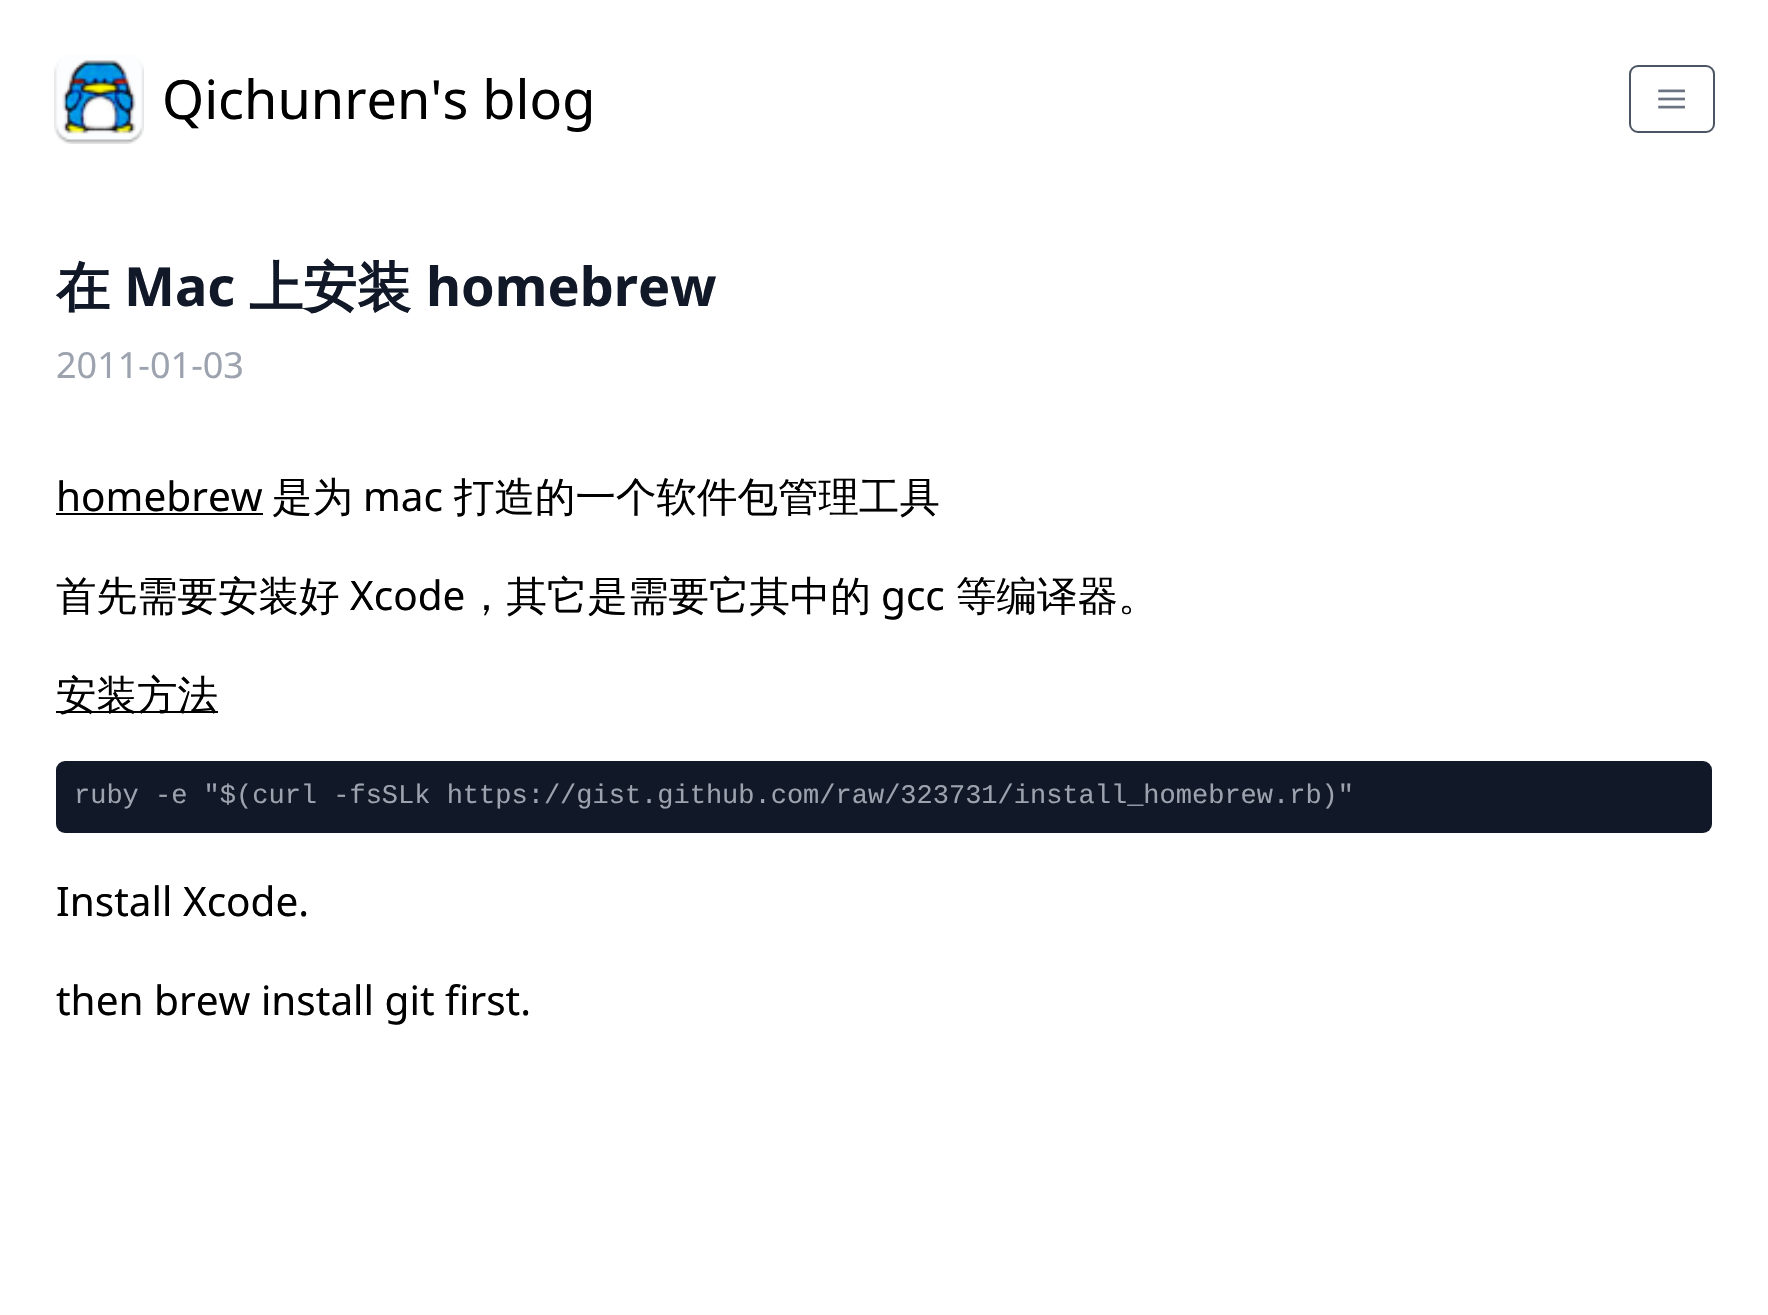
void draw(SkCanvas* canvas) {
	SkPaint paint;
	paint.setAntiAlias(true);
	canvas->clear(0xffffffff);
	canvas->drawImageRect(SkImages::DeferredFromEncodedData(SkData::MakeFromFileName("img1.png")), SkRect::MakeXYWH(54, 54, 90, 90), SkSamplingOptions());
	SkFont f1(fontMgr->matchFamilyStyle("Noto Sans", SkFontStyle::Normal()), 54);
	f1.setSubpixel(true);
	paint.setColor(0xff000000);
	canvas->drawString("Qichunren's blog", 162, 119, f1, paint);
	paint.setStroke(true);
	paint.setStrokeWidth(2);
	paint.setColor(0xff4b5563);
	canvas->drawRoundRect(SkRect::MakeXYWH(1630, 66, 84, 66), 8, 8, paint);
	canvas->drawImageRect(SkImages::DeferredFromEncodedData(SkData::MakeFromFileName("img2.png")), SkRect::MakeXYWH(1658, 89, 27, 20), SkSamplingOptions());
	SkFont f2(fontMgr->matchFamilyStyle("WenQuanYi Zen Hei", SkFontStyle::Bold()), 54);
	f2.setSubpixel(true);
	paint.setStroke(false);
	paint.setColor(0xff111827);
	canvas->drawString("在", 56, 306, f2, paint);
	SkFont f3(fontMgr->matchFamilyStyle("Noto Sans", SkFontStyle::Bold()), 54);
	f3.setSubpixel(true);
	canvas->drawString("Mac", 124, 306, f3, paint);
	canvas->drawString("上安装", 249, 306, f2, paint);
	canvas->drawString("homebrew", 426, 306, f3, paint);
	SkFont f4(fontMgr->matchFamilyStyle("Noto Sans", SkFontStyle::Normal()), 36);
	f4.setSubpixel(true);
	paint.setColor(0xff9ca3af);
	canvas->drawString("2011-01-03", 56, 378, f4, paint);
	SkFont f5(fontMgr->matchFamilyStyle("Noto Sans", SkFontStyle::Normal()), 40.5);
	f5.setSubpixel(true);
	paint.setColor(0xff000000);
	canvas->drawString("homebrew", 56, 511, f5, paint);
	canvas->drawRect(SkRect::MakeXYWH(56, 513, 207, 2), paint);
	SkFont f6(fontMgr->matchFamilyStyle("WenQuanYi Zen Hei", SkFontStyle(500, SkFontStyle::kNormal_Width, SkFontStyle::kUpright_Slant)), 40.5);
	f6.setSubpixel(true);
	canvas->drawString("是为", 272, 511, f6, paint);
	canvas->drawString("mac", 363, 511, f5, paint);
	canvas->drawString("打造的一个软件包管理工具", 454, 511, f6, paint);
	canvas->drawString("首先需要安装好", 56, 610, f6, paint);
	canvas->drawString("Xcode", 350, 610, f5, paint);
	canvas->drawString("，其它是需要它其中的", 466, 610, f6, paint);
	canvas->drawString("gcc", 881, 610, f5, paint);
	canvas->drawString("等编译器。", 956, 610, f6, paint);
	canvas->drawRect(SkRect::MakeXYWH(56, 711, 162, 2), paint);
	canvas->drawString("安装方法", 56, 709, f6, paint);
	paint.setColor(0xff111827);
	canvas->drawRoundRect(SkRect::MakeXYWH(56, 761, 1656, 72), 9, 9, paint);
	SkFont f7(fontMgr->matchFamilyStyle("Liberation Mono", SkFontStyle::Normal()), 27);
	f7.setSubpixel(true);
	paint.setColor(0xff9ca3af);
	canvas->drawString("ruby -e \"$(curl -fsSLk https://gist.github.com/raw/323731/install_homebrew.rb)\"", 74, 803, f7, paint);
	paint.setColor(0xff000000);
	canvas->drawString("Install Xcode.", 56, 916, f5, paint);
	canvas->drawString("then brew install git first.", 56, 1015, f5, paint);
}
